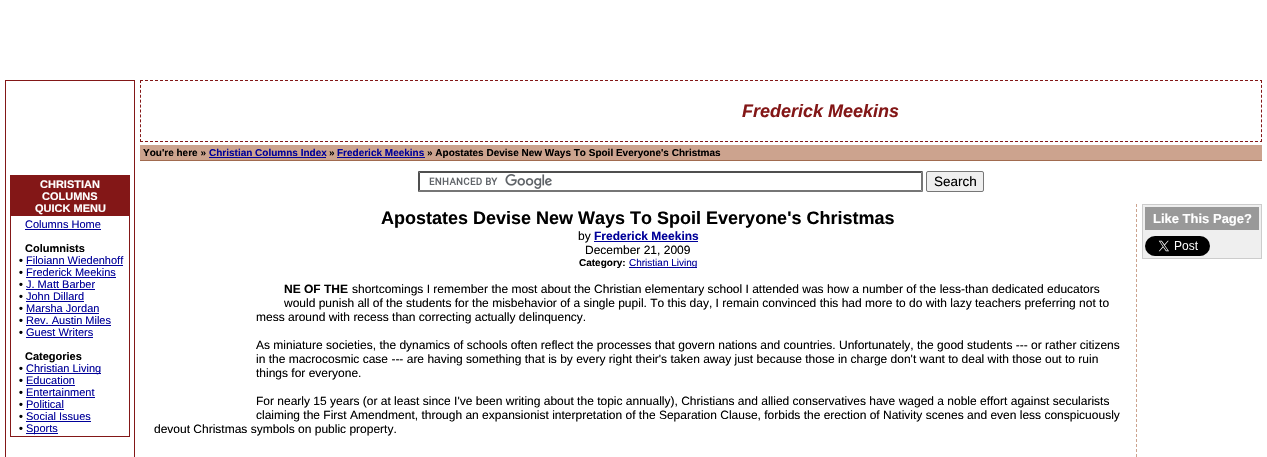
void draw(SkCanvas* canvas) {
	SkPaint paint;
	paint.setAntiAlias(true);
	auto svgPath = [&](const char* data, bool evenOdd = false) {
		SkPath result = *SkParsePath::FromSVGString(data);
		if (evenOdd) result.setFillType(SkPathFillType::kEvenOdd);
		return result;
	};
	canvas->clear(0xffffffff);
	paint.setColor(0xff831717);
	canvas->drawRect(SkRect::MakeXYWH(5, 80, 130, 377), paint);
	paint.setColor(0xffffffff);
	canvas->drawRect(SkRect::MakeXYWH(6, 81, 128, 376), paint);
	paint.setColor(0xff831717);
	canvas->drawRect(SkRect::MakeXYWH(10, 175, 120, 262), paint);
	SkFont f1(fontMgr->matchFamilyStyle("Liberation Sans", SkFontStyle::Bold()), 11);
	f1.setSubpixel(true);
	paint.setColor(0xffffffff);
	canvas->drawString("CHRISTIAN", 40, 188, f1, paint);
	canvas->drawString("COLUMNS", 42, 200, f1, paint);
	canvas->drawString("QUICK MENU", 35, 212, f1, paint);
	canvas->drawRect(SkRect::MakeXYWH(11, 216, 118, 220), paint);
	SkFont f2(fontMgr->matchFamilyStyle("Liberation Sans", SkFontStyle::Normal()), 11);
	f2.setSubpixel(true);
	paint.setColor(0xff000099);
	canvas->drawString("Columns Home", 25, 228, f2, paint);
	canvas->drawRect(SkRect::MakeXYWH(25, 229, 76, 1), paint);
	paint.setColor(0xff000000);
	canvas->drawString("Columnists", 25, 252, f1, paint);
	canvas->drawString("•", 19, 264, f1, paint);
	paint.setColor(0xff000099);
	canvas->drawString("Filoiann Wiedenhoff", 26, 264, f2, paint);
	canvas->drawRect(SkRect::MakeXYWH(26, 265, 97, 1), paint);
	paint.setColor(0xff000000);
	canvas->drawString("•", 19, 276, f1, paint);
	paint.setColor(0xff000099);
	canvas->drawString("Frederick Meekins", 26, 276, f2, paint);
	canvas->drawRect(SkRect::MakeXYWH(26, 277, 90, 1), paint);
	paint.setColor(0xff000000);
	canvas->drawString("•", 19, 288, f1, paint);
	paint.setColor(0xff000099);
	canvas->drawString("J. Matt Barber", 26, 288, f2, paint);
	canvas->drawRect(SkRect::MakeXYWH(26, 289, 69, 1), paint);
	paint.setColor(0xff000000);
	canvas->drawString("•", 19, 300, f1, paint);
	paint.setColor(0xff000099);
	canvas->drawString("John Dillard", 26, 300, f2, paint);
	canvas->drawRect(SkRect::MakeXYWH(26, 301, 58, 1), paint);
	paint.setColor(0xff000000);
	canvas->drawString("•", 19, 312, f1, paint);
	paint.setColor(0xff000099);
	canvas->drawString("Marsha Jordan", 26, 312, f2, paint);
	canvas->drawRect(SkRect::MakeXYWH(26, 313, 73, 1), paint);
	paint.setColor(0xff000000);
	canvas->drawString("•", 19, 324, f1, paint);
	paint.setColor(0xff000099);
	canvas->drawString("Rev. Austin Miles", 26, 324, f2, paint);
	canvas->drawRect(SkRect::MakeXYWH(26, 325, 85, 1), paint);
	paint.setColor(0xff000000);
	canvas->drawString("•", 19, 336, f1, paint);
	paint.setColor(0xff000099);
	canvas->drawString("Guest Writers", 26, 336, f2, paint);
	canvas->drawRect(SkRect::MakeXYWH(26, 337, 67, 1), paint);
	paint.setColor(0xff000000);
	canvas->drawString("Categories", 25, 360, f1, paint);
	canvas->drawString("•", 19, 372, f1, paint);
	paint.setColor(0xff000099);
	canvas->drawRect(SkRect::MakeXYWH(26, 373, 75, 1), paint);
	canvas->drawString("Christian Living", 26, 372, f2, paint);
	paint.setColor(0xff000000);
	canvas->drawString("•", 19, 384, f1, paint);
	paint.setColor(0xff000099);
	canvas->drawString("Education", 26, 384, f2, paint);
	canvas->drawRect(SkRect::MakeXYWH(26, 385, 49, 1), paint);
	paint.setColor(0xff000000);
	canvas->drawString("•", 19, 396, f1, paint);
	paint.setColor(0xff000099);
	canvas->drawString("Entertainment", 26, 396, f2, paint);
	canvas->drawRect(SkRect::MakeXYWH(26, 397, 69, 1), paint);
	paint.setColor(0xff000000);
	canvas->drawString("•", 19, 408, f1, paint);
	paint.setColor(0xff000099);
	canvas->drawString("Political", 26, 408, f2, paint);
	canvas->drawRect(SkRect::MakeXYWH(26, 409, 38, 1), paint);
	paint.setColor(0xff000000);
	canvas->drawString("•", 19, 420, f1, paint);
	paint.setColor(0xff000099);
	canvas->drawString("Social Issues", 26, 420, f2, paint);
	canvas->drawRect(SkRect::MakeXYWH(26, 421, 65, 1), paint);
	paint.setColor(0xff000000);
	canvas->drawString("•", 19, 432, f1, paint);
	paint.setColor(0xff000099);
	canvas->drawRect(SkRect::MakeXYWH(26, 433, 32, 1), paint);
	canvas->drawString("Sports", 26, 432, f2, paint);
	paint.setStroke(true);
	paint.setStrokeWidth(1);
	paint.setColor(0xff831717);
	paint.setPathEffect(SkDashPathEffect::Make({{3, 2}}, 0));
	canvas->drawPath(svgPath("M140 80.5H1262"), paint);
	paint.setPathEffect(nullptr);
	paint.setPathEffect(SkDashPathEffect::Make({{3, 1.92f}}, 0));
	canvas->drawPath(svgPath("M1261.5 80V142"), paint);
	paint.setPathEffect(nullptr);
	paint.setPathEffect(SkDashPathEffect::Make({{3, 2}}, 0));
	canvas->drawPath(svgPath("M140 141.5H1262"), paint);
	paint.setPathEffect(nullptr);
	paint.setPathEffect(SkDashPathEffect::Make({{3, 1.92f}}, 0));
	canvas->drawPath(svgPath("M140.5 80V142"), paint);
	paint.setPathEffect(nullptr);
	SkFont f3(fontMgr->matchFamilyStyle("Liberation Sans", SkFontStyle::BoldItalic()), 18);
	f3.setSubpixel(true);
	paint.setStroke(false);
	canvas->drawString("Frederick Meekins", 742, 117, f3, paint);
	paint.setColor(0xffa16b4f);
	canvas->drawRect(SkRect::MakeXYWH(140, 160, 1122, 1), paint);
	paint.setColor(0xffcca38e);
	canvas->drawRect(SkRect::MakeXYWH(140, 145, 1122, 15), paint);
	SkFont f4(fontMgr->matchFamilyStyle("Liberation Sans", SkFontStyle::Bold()), 10);
	f4.setSubpixel(true);
	paint.setColor(0xff000000);
	canvas->drawString("You're here »", 143, 156, f4, paint);
	paint.setColor(0xff000099);
	canvas->drawString("Christian Columns Index", 209, 156, f4, paint);
	canvas->drawRect(SkRect::MakeXYWH(209, 157, 117, 1), paint);
	paint.setColor(0xff000000);
	canvas->drawString("»", 329, 156, f4, paint);
	paint.setColor(0xff000099);
	canvas->drawRect(SkRect::MakeXYWH(337, 157, 88, 1), paint);
	canvas->drawString("Frederick Meekins", 337, 156, f4, paint);
	paint.setColor(0xff000000);
	canvas->drawString("» Apostates Devise New Ways To Spoil Everyone's Christmas", 427, 156, f4, paint);
	canvas->drawImageRect(SkImages::DeferredFromEncodedData(SkData::MakeFromFileName("img1.png")), SkRect::MakeXYWH(429, 174, 123, 15), SkSamplingOptions());
	paint.setColor(0xff4f4f4f);
	canvas->drawPath(svgPath("M418 171H923L921 173H420Z"), paint);
	paint.setColor(0xff767676);
	canvas->drawPath(svgPath("M923 171V192L921 190V173Z"), paint);
	canvas->drawPath(svgPath("M923 192H418L420 190H921Z"), paint);
	paint.setColor(0xff4f4f4f);
	canvas->drawPath(svgPath("M418 192V171L420 173V190Z"), paint);
	paint.setColor(0xffefefef);
	canvas->drawRoundRect(SkRect::MakeXYWH(926.5, 171.5, 57, 20), 1.5, 1.5, paint);
	paint.setStroke(true);
	paint.setColor(0xff767676);
	canvas->drawRoundRect(SkRect::MakeXYWH(926.5, 171.5, 57, 20), 1.5, 1.5, paint);
	SkFont f5(fontMgr->matchFamilyStyle("Liberation Sans", SkFontStyle::Normal()), 13.5);
	f5.setSubpixel(true);
	paint.setStroke(false);
	paint.setColor(0xff000000);
	canvas->drawString("Search", 934, 186, f5, paint);
	SkFont f6(fontMgr->matchFamilyStyle("Liberation Sans", SkFontStyle::Bold()), 18);
	f6.setSubpixel(true);
	canvas->drawString("Apostates Devise New Ways To Spoil Everyone's Christmas", 381, 224, f6, paint);
	SkFont f7(fontMgr->matchFamilyStyle("Liberation Sans", SkFontStyle::Normal()), 12);
	f7.setSubpixel(true);
	canvas->drawString("by", 578, 240, f7, paint);
	SkFont f8(fontMgr->matchFamilyStyle("Liberation Sans", SkFontStyle::Bold()), 12);
	f8.setSubpixel(true);
	paint.setColor(0xff000099);
	canvas->drawString("Frederick Meekins", 594, 240, f8, paint);
	canvas->drawRect(SkRect::MakeXYWH(594, 241, 104, 1), paint);
	paint.setColor(0xff000000);
	canvas->drawString("December 21, 2009", 585, 254, f7, paint);
	canvas->drawString("Category:", 579, 266, f4, paint);
	paint.setColor(0xff000099);
	canvas->drawRect(SkRect::MakeXYWH(629, 267, 68, 1), paint);
	SkFont f9(fontMgr->matchFamilyStyle("Liberation Sans", SkFontStyle::Normal()), 10);
	f9.setSubpixel(true);
	canvas->drawString("Christian Living", 629, 266, f9, paint);
	paint.setColor(0xff000000);
	canvas->drawString("NE OF THE", 284, 293, f8, paint);
	canvas->drawString("shortcomings I remember the most about the Christian elementary school I attended was how a number of the less-than dedicated educators", 352, 293, f7, paint);
	canvas->drawString("would punish all of the students for the misbehavior of a single pupil. To this day, I remain convinced this had more to do with lazy teachers preferring not to", 284, 307, f7, paint);
	canvas->drawString("mess around with recess than correcting actually delinquency.", 256, 321, f7, paint);
	canvas->drawString("As miniature societies, the dynamics of schools often reflect the processes that govern nations and countries. Unfortunately, the good students --- or rather citizens", 256, 349, f7, paint);
	canvas->drawString("in the macrocosmic case --- are having something that is by every right their's taken away just because those in charge don't want to deal with those out to ruin", 256, 363, f7, paint);
	canvas->drawString("things for everyone.", 256, 377, f7, paint);
	canvas->drawString("For nearly 15 years (or at least since I've been writing about the topic annually), Christians and allied conservatives have waged a noble effort against secularists", 256, 405, f7, paint);
	canvas->drawString("claiming the First Amendment, through an expansionist interpretation of the Separation Clause, forbids the erection of Nativity scenes and even less conspicuously", 256, 419, f7, paint);
	canvas->drawString("devout Christmas symbols on public property.", 154, 433, f7, paint);
	paint.setStroke(true);
	paint.setColor(0xffcca38e);
	paint.setPathEffect(SkDashPathEffect::Make({{3, 2}}, 0));
	canvas->drawPath(svgPath("M1136.5 204V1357"), paint);
	paint.setPathEffect(nullptr);
	paint.setStroke(false);
	paint.setColor(0xffefefef);
	canvas->drawRect(SkRect::MakeXYWH(1142.5, 204.5, 119, 54), paint);
	paint.setStroke(true);
	paint.setColor(0xffcccccc);
	canvas->drawRect(SkRect::MakeXYWH(1142.5, 204.5, 119, 54), paint);
	paint.setStroke(false);
	paint.setColor(0xff999999);
	canvas->drawRect(SkRect::MakeXYWH(1145, 207, 114, 23), paint);
	SkFont f10(fontMgr->matchFamilyStyle("Liberation Sans", SkFontStyle::Bold()), 13);
	f10.setSubpixel(true);
	paint.setColor(0xffffffff);
	canvas->drawString("Like This Page?", 1153, 223, f10, paint);
	canvas->drawImageRect(SkImages::DeferredFromEncodedData(SkData::MakeFromFileName("img2.png")), SkRect::MakeXYWH(1145, 236, 65, 20), SkSamplingOptions());
}
